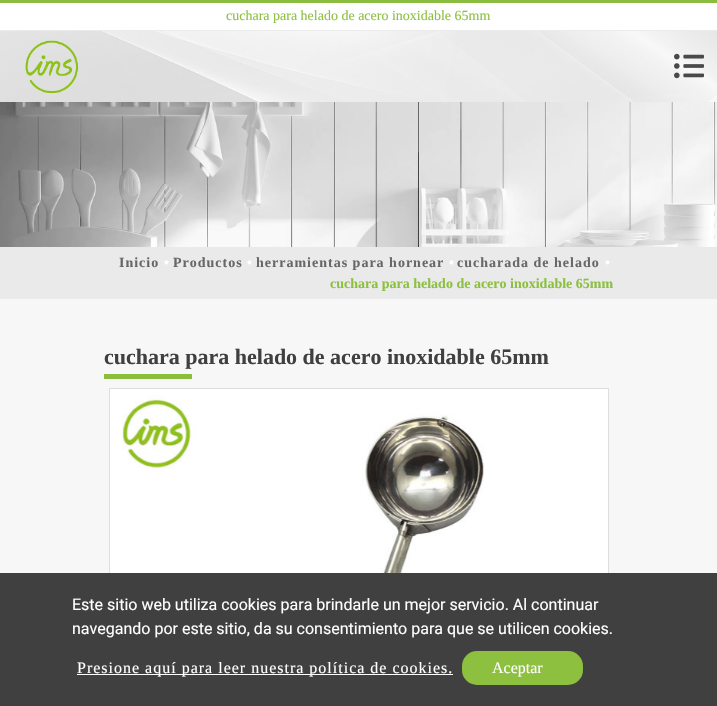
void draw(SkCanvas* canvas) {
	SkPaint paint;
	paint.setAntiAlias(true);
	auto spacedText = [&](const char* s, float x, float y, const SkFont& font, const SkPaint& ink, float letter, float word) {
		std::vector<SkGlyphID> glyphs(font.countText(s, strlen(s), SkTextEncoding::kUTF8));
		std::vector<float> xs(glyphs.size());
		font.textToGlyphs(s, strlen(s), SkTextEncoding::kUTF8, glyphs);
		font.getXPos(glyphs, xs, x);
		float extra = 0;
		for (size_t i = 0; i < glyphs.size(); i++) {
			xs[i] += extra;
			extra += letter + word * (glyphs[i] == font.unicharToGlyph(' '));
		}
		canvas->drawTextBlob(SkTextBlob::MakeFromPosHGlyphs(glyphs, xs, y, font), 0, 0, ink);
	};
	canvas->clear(0xffffffff);
	paint.setColor(0xff8abd3f);
	canvas->drawRect(SkRect::MakeXYWH(0, 0, 717, 3), paint);
	paint.setColor(0xffebebeb);
	canvas->drawRect(SkRect::MakeXYWH(0, 30, 717, 1), paint);
	SkFont f1(fontMgr->matchFamilyStyle("Liberation Serif", SkFontStyle::Normal()), 14);
	f1.setSubpixel(true);
	paint.setColor(0xff8cc03f);
	canvas->drawString("cuchara para helado de acero inoxidable 65mm", 226, 20, f1, paint);
	canvas->drawImageRect(SkImages::DeferredFromEncodedData(SkData::MakeFromFileName("img1.png")), SkRect::MakeXYWH(0, 31, 717, 71), SkSamplingOptions());
	canvas->drawImageRect(SkImages::DeferredFromEncodedData(SkData::MakeFromFileName("img2.png")), SkRect::MakeXYWH(25, 40, 53, 54), SkSamplingOptions());
	canvas->drawImageRect(SkImages::DeferredFromEncodedData(SkData::MakeFromFileName("img3.png")), SkRect::MakeXYWH(674, 53, 30, 26), SkSamplingOptions());
	paint.setColor(0xfff7f7f7);
	canvas->drawRect(SkRect::MakeXYWH(0, 299, 717, 274), paint);
	canvas->drawImageRect(SkImages::DeferredFromEncodedData(SkData::MakeFromFileName("img4.png")), SkRect::MakeXYWH(0, 102, 717, 145), SkSamplingOptions());
	paint.setColor(0xffeaeaea);
	canvas->drawRect(SkRect::MakeXYWH(0, 247, 717, 52), paint);
	SkFont f2(fontMgr->matchFamilyStyle("Liberation Serif", SkFontStyle::Bold()), 14);
	f2.setSubpixel(true);
	paint.setColor(0xff676767);
	spacedText("Inicio", 119, 267, f2, paint, 1, 0);
	paint.setColor(0xffffffff);
	spacedText("•", 164, 267, f2, paint, 1, 0);
	paint.setColor(0xff676767);
	spacedText("Productos", 173, 267, f2, paint, 1, 0);
	paint.setColor(0xffffffff);
	spacedText("•", 247, 267, f2, paint, 1, 0);
	paint.setColor(0xff676767);
	spacedText("herramientas para hornear", 256, 267, f2, paint, 1, 0);
	paint.setColor(0xffffffff);
	spacedText("•", 449, 267, f2, paint, 1, 0);
	paint.setColor(0xff676767);
	spacedText("cucharada de helado", 457, 267, f2, paint, 1, 0);
	paint.setColor(0xffffffff);
	spacedText("•", 605, 267, f2, paint, 1, 0);
	paint.setColor(0xff8cc03f);
	canvas->drawString("cuchara para helado de acero inoxidable 65mm", 330, 288, f2, paint);
	SkFont f3(fontMgr->matchFamilyStyle("Liberation Serif", SkFontStyle::Bold()), 22);
	f3.setSubpixel(true);
	paint.setColor(0xff404040);
	canvas->drawString("cuchara para helado de acero inoxidable 65mm", 104, 364, f3, paint);
	paint.setColor(0xff8bbe3e);
	canvas->drawRect(SkRect::MakeXYWH(104, 374, 88, 5), paint);
	paint.setStroke(true);
	paint.setStrokeWidth(1);
	paint.setColor(0xffdedede);
	canvas->drawRect(SkRect::MakeXYWH(109.5, 388.5, 499, 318), paint);
	canvas->drawImageRect(SkImages::DeferredFromEncodedData(SkData::MakeFromFileName("img5.png")), SkRect::MakeXYWH(110, 389, 498, 184), SkSamplingOptions());
	paint.setStroke(false);
	paint.setColor(0xff404040);
	canvas->drawRect(SkRect::MakeXYWH(0, 573, 717, 133), paint);
	SkFont f4(fontMgr->matchFamilyStyle("Roboto", SkFontStyle::Normal()), 16);
	f4.setSubpixel(true);
	paint.setColor(0xffffffff);
	canvas->drawString("Este sitio web utiliza cookies para brindarle un mejor servicio. Al continuar", 72, 610, f4, paint);
	canvas->drawString("navegando por este sitio, da su consentimiento para que se utilicen cookies.", 72, 634, f4, paint);
	canvas->drawRect(SkRect::MakeXYWH(77, 674, 376, 1), paint);
	SkFont f5(fontMgr->matchFamilyStyle("Liberation Serif", SkFontStyle::Normal()), 16);
	f5.setSubpixel(true);
	spacedText("Presione aquí para leer nuestra política de cookies.", 77, 673, f5, paint, 1, 0);
	paint.setColor(0xff8cc03e);
	canvas->drawRoundRect(SkRect::MakeXYWH(462, 651, 121, 34), 15, 15, paint);
	paint.setColor(0xffffffff);
	canvas->drawString("Aceptar", 492, 673, f5, paint);
}
